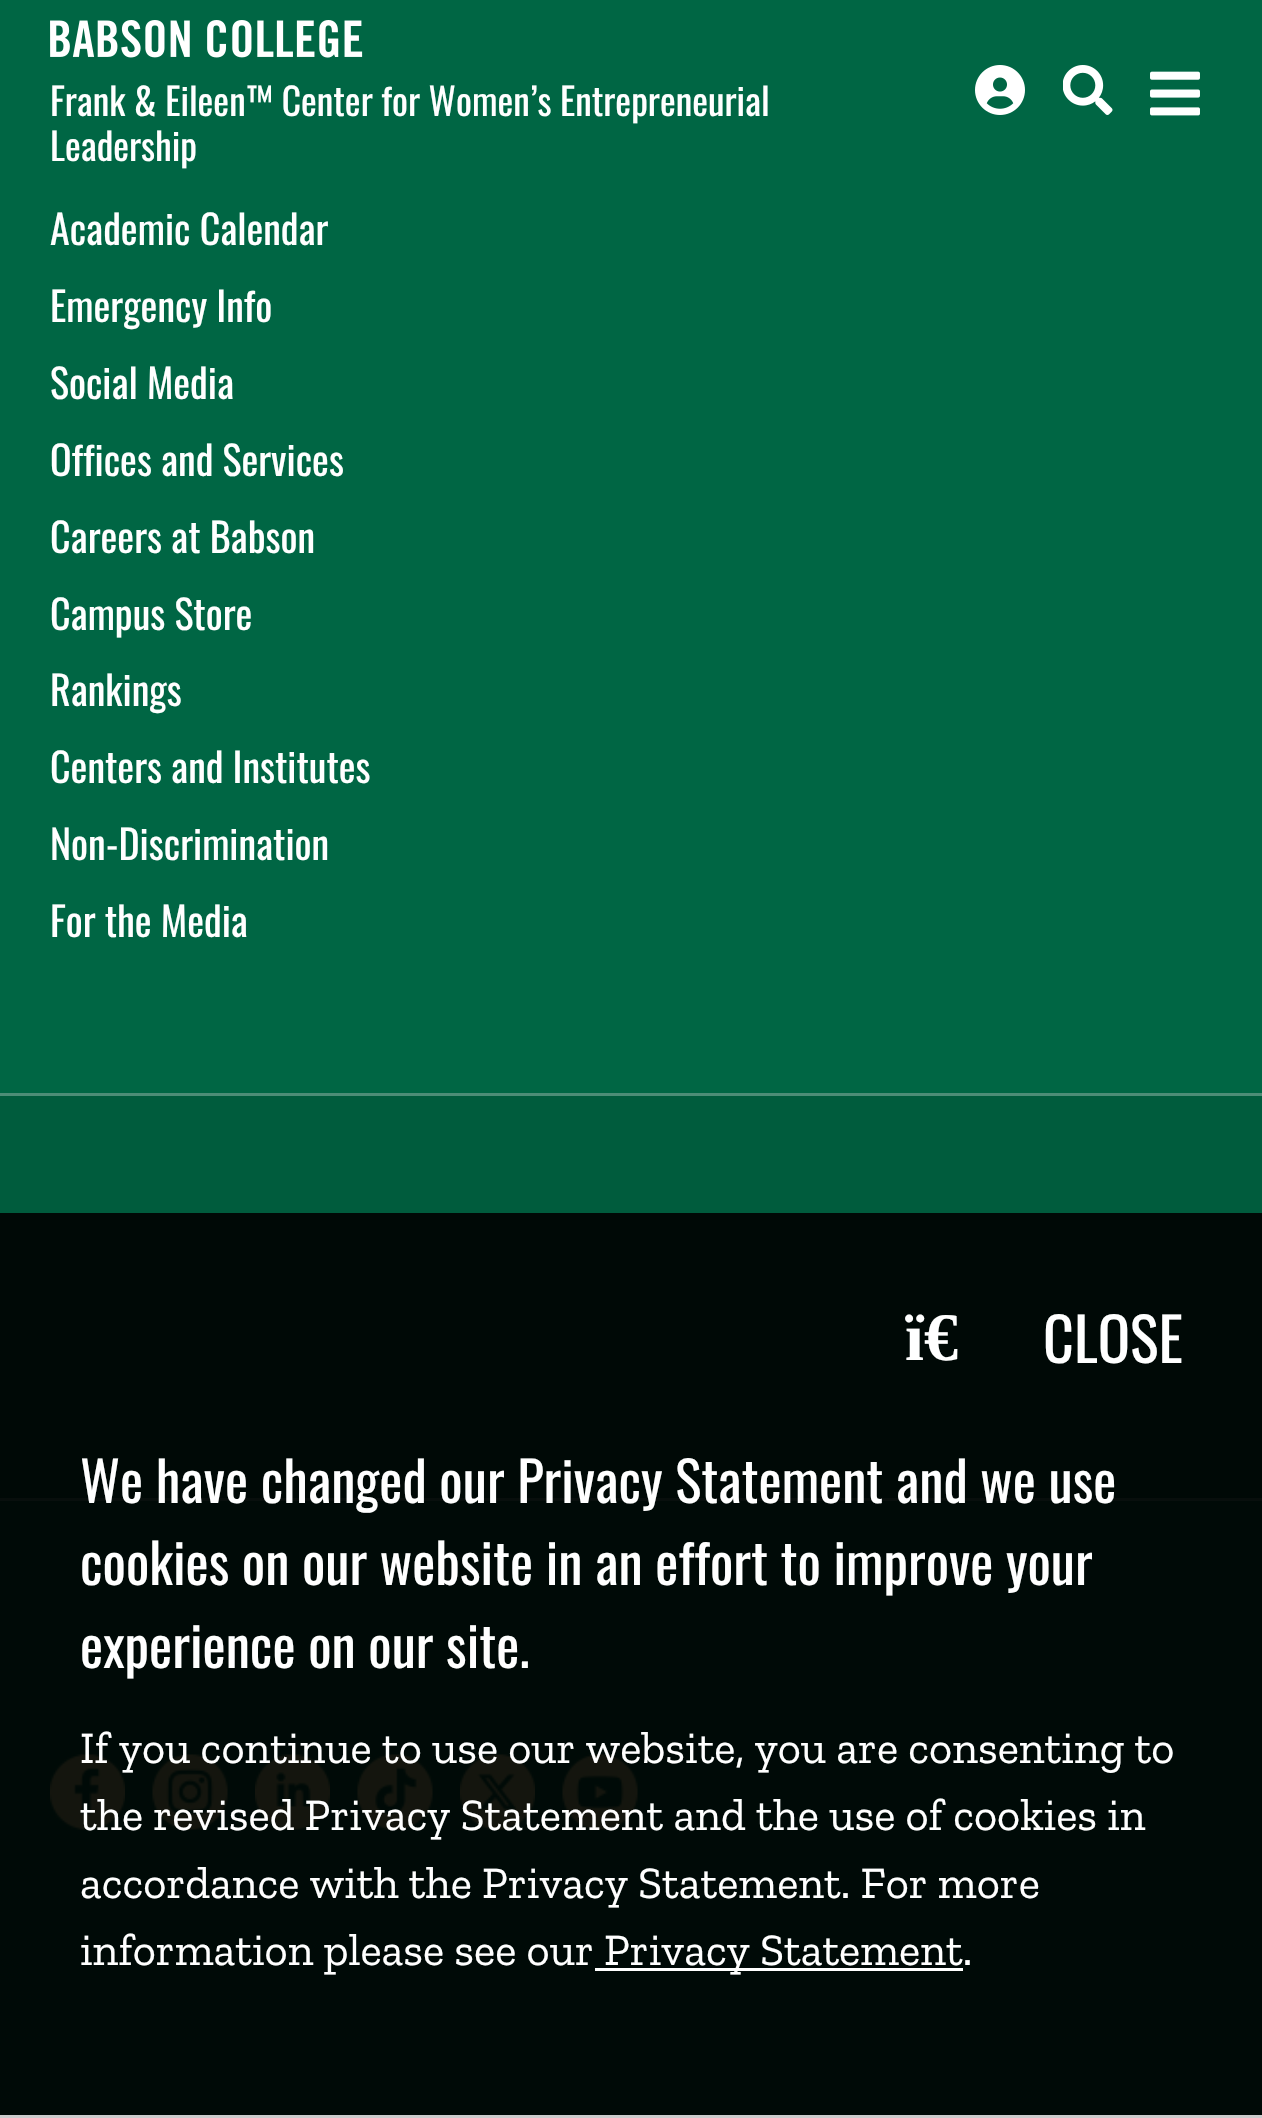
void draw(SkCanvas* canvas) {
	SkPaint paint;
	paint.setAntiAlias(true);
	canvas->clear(0xff006644);
	canvas->drawImageRect(SkImages::DeferredFromEncodedData(SkData::MakeFromFileName("img1.png")), SkRect::MakeXYWH(50, 20, 313, 38), SkSamplingOptions());
	SkFont f1(fontMgr->matchFamilyStyle("Oswald", SkFontStyle::Normal()), 37.5);
	f1.setSubpixel(true);
	paint.setColor(0xffffffff);
	canvas->drawString("Frank & Eileen™ Center for Women’s Entrepreneurial", 50, 116, f1, paint);
	canvas->drawString("Leadership", 50, 161, f1, paint);
	canvas->drawImageRect(SkImages::DeferredFromEncodedData(SkData::MakeFromFileName("img2.png")), SkRect::MakeXYWH(975, 65, 50, 50), SkSamplingOptions());
	canvas->drawImageRect(SkImages::DeferredFromEncodedData(SkData::MakeFromFileName("img3.png")), SkRect::MakeXYWH(1063, 65, 50, 50), SkSamplingOptions());
	canvas->drawImageRect(SkImages::DeferredFromEncodedData(SkData::MakeFromFileName("img4.png")), SkRect::MakeXYWH(1150, 71, 50, 45), SkSamplingOptions());
	paint.setColor(0xff4d947c);
	canvas->drawRect(SkRect::MakeXYWH(0, 1500, 1262, 1), paint);
	SkFont f2(fontMgr->matchFamilyStyle("Oswald", SkFontStyle::Normal()), 40);
	f2.setSubpixel(true);
	paint.setColor(0xffffffff);
	canvas->drawString("Academic Calendar", 50, 245, f2, paint);
	canvas->drawString("Emergency Info", 50, 322, f2, paint);
	canvas->drawString("Social Media", 50, 399, f2, paint);
	canvas->drawString("Offices and Services", 50, 476, f2, paint);
	canvas->drawString("Careers at Babson", 50, 553, f2, paint);
	canvas->drawString("Campus Store", 50, 630, f2, paint);
	canvas->drawString("Rankings", 50, 706, f2, paint);
	canvas->drawString("Centers and Institutes", 50, 783, f2, paint);
	canvas->drawString("Non-Discrimination", 50, 860, f2, paint);
	canvas->drawString("For the Media", 50, 937, f2, paint);
	paint.setColor(0xff005c3d);
	canvas->drawRect(SkRect::MakeXYWH(0, 1096, 1262, 402), paint);
	paint.setColor(0xff4d8d77);
	canvas->drawRect(SkRect::MakeXYWH(0, 1498, 1262, 2), paint);
	canvas->drawRect(SkRect::MakeXYWH(0, 1093, 1262, 3), paint);
	canvas->drawImageRect(SkImages::DeferredFromEncodedData(SkData::MakeFromFileName("img5.png")), SkRect::MakeXYWH(50, 1754, 75, 76), SkSamplingOptions());
	canvas->drawImageRect(SkImages::DeferredFromEncodedData(SkData::MakeFromFileName("img6.png")), SkRect::MakeXYWH(152, 1754, 76, 76), SkSamplingOptions());
	canvas->drawImageRect(SkImages::DeferredFromEncodedData(SkData::MakeFromFileName("img7.png")), SkRect::MakeXYWH(255, 1754, 75, 76), SkSamplingOptions());
	canvas->drawImageRect(SkImages::DeferredFromEncodedData(SkData::MakeFromFileName("img8.png")), SkRect::MakeXYWH(357, 1754, 76, 76), SkSamplingOptions());
	canvas->drawImageRect(SkImages::DeferredFromEncodedData(SkData::MakeFromFileName("img9.png")), SkRect::MakeXYWH(460, 1754, 75, 76), SkSamplingOptions());
	canvas->drawImageRect(SkImages::DeferredFromEncodedData(SkData::MakeFromFileName("img10.png")), SkRect::MakeXYWH(562, 1754, 76, 76), SkSamplingOptions());
	paint.setColor(0xe6000000);
	canvas->drawRect(SkRect::MakeXYWH(0, 1213, 1262, 902), paint);
	paint.setColor(0xffcccccc);
	canvas->drawRect(SkRect::MakeXYWH(0, 2115, 1262, 3), paint);
	SkFont f3(fontMgr->matchFamilyStyle("Liberation Serif", SkFontStyle::Bold()), 68);
	f3.setSubpixel(true);
	paint.setColor(0xffffffff);
	canvas->drawString("ï€", 905, 1360, f3, paint);
	SkFont f4(fontMgr->matchFamilyStyle("Oswald", SkFontStyle::Normal()), 60);
	f4.setSubpixel(true);
	canvas->drawString("CLOSE", 1043, 1363, f4, paint);
	SkFont f5(fontMgr->matchFamilyStyle("Oswald", SkFontStyle::Normal()), 55);
	f5.setSubpixel(true);
	canvas->drawString("We have changed our Privacy Statement and we use", 80, 1503, f5, paint);
	canvas->drawString("cookies on our website in an effort to improve your", 80, 1585, f5, paint);
	canvas->drawString("experience on our site.", 80, 1668, f5, paint);
	SkFont f6(fontMgr->matchFamilyStyle("Zilla Slab", SkFontStyle::Normal()), 45);
	f6.setSubpixel(true);
	canvas->drawString("If you continue to use our website, you are consenting to", 80, 1763, f6, paint);
	canvas->drawString("the revised Privacy Statement and the use of cookies in", 80, 1830, f6, paint);
	canvas->drawString("accordance with the Privacy Statement. For more", 80, 1898, f6, paint);
	canvas->drawString("information please see our", 80, 1965, f6, paint);
	canvas->drawRect(SkRect::MakeXYWH(595, 1968, 368, 3), paint);
	canvas->drawString("Privacy Statement.", 604, 1965, f6, paint);
}
